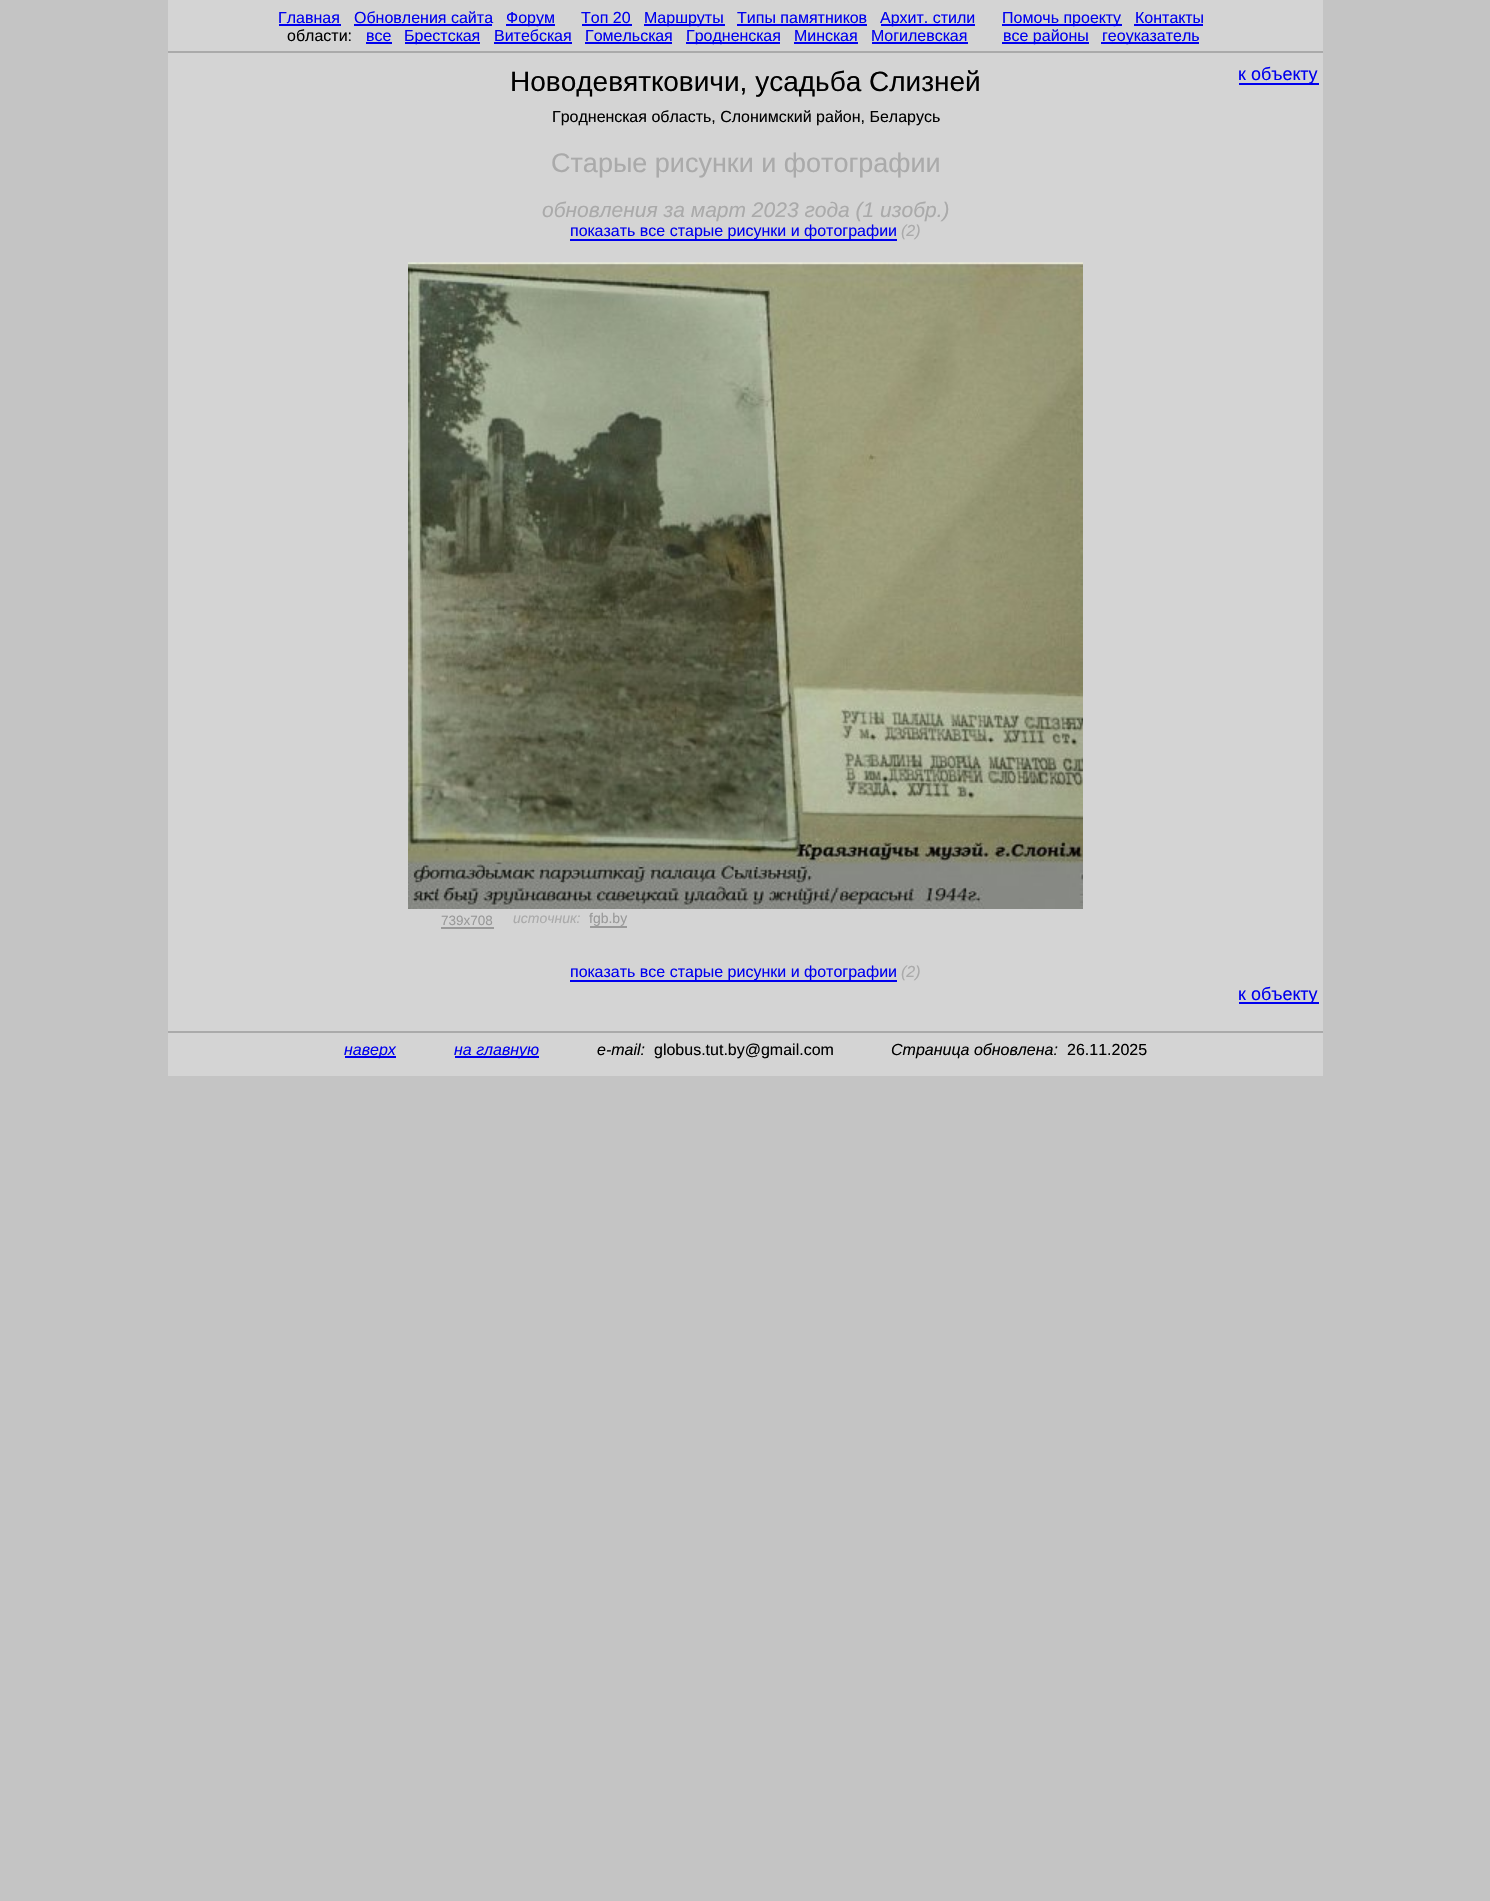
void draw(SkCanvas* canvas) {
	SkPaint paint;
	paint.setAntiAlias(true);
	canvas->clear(0xffc4c4c4);
	paint.setColor(0xffd4d4d4);
	canvas->drawRect(SkRect::MakeXYWH(168, 0, 1155, 1076), paint);
	SkFont f1(fontMgr->matchFamilyStyle("Liberation Sans", SkFontStyle::Normal()), 16);
	f1.setSubpixel(true);
	paint.setColor(0xff0000ee);
	canvas->drawString("Главная", 278, 23, f1, paint);
	canvas->drawRect(SkRect::MakeXYWH(279, 24, 62, 2), paint);
	canvas->drawString("Обновления сайта", 354, 23, f1, paint);
	canvas->drawRect(SkRect::MakeXYWH(354, 24, 138, 2), paint);
	canvas->drawRect(SkRect::MakeXYWH(506, 24, 49, 2), paint);
	canvas->drawString("Форум", 506, 23, f1, paint);
	canvas->drawString("Топ 20", 581, 23, f1, paint);
	canvas->drawRect(SkRect::MakeXYWH(582, 24, 50, 2), paint);
	canvas->drawRect(SkRect::MakeXYWH(644, 24, 81, 2), paint);
	canvas->drawString("Маршруты", 644, 23, f1, paint);
	canvas->drawString("Типы памятников", 737, 23, f1, paint);
	canvas->drawRect(SkRect::MakeXYWH(737, 24, 130, 2), paint);
	canvas->drawRect(SkRect::MakeXYWH(881, 24, 94, 2), paint);
	canvas->drawString("Архит. стили", 880, 23, f1, paint);
	canvas->drawRect(SkRect::MakeXYWH(1002, 24, 120, 2), paint);
	canvas->drawString("Помочь проекту", 1002, 23, f1, paint);
	canvas->drawString("Контакты", 1135, 23, f1, paint);
	canvas->drawRect(SkRect::MakeXYWH(1134, 24, 69, 2), paint);
	paint.setColor(0xff000000);
	canvas->drawString("области:", 287, 41, f1, paint);
	paint.setColor(0xff0000ee);
	canvas->drawString("все", 366, 41, f1, paint);
	canvas->drawRect(SkRect::MakeXYWH(366, 42, 26, 2), paint);
	canvas->drawRect(SkRect::MakeXYWH(405, 42, 75, 2), paint);
	canvas->drawString("Брестская", 404, 41, f1, paint);
	canvas->drawString("Витебская", 494, 41, f1, paint);
	canvas->drawRect(SkRect::MakeXYWH(494, 42, 78, 2), paint);
	canvas->drawString("Гомельская", 585, 41, f1, paint);
	canvas->drawRect(SkRect::MakeXYWH(585, 42, 87, 2), paint);
	canvas->drawRect(SkRect::MakeXYWH(686, 42, 94, 2), paint);
	canvas->drawString("Гродненская", 686, 41, f1, paint);
	canvas->drawString("Минская", 794, 41, f1, paint);
	canvas->drawRect(SkRect::MakeXYWH(794, 42, 64, 2), paint);
	canvas->drawString("Могилевская", 871, 41, f1, paint);
	canvas->drawRect(SkRect::MakeXYWH(872, 42, 96, 2), paint);
	canvas->drawRect(SkRect::MakeXYWH(1002, 42, 87, 2), paint);
	canvas->drawString("все районы", 1003, 41, f1, paint);
	canvas->drawRect(SkRect::MakeXYWH(1101, 42, 98, 2), paint);
	canvas->drawString("геоуказатель", 1102, 41, f1, paint);
	paint.setColor(0xffaaaaaa);
	canvas->drawRect(SkRect::MakeXYWH(168, 51, 1155, 2), paint);
	SkFont f2(fontMgr->matchFamilyStyle("Liberation Sans", SkFontStyle::Normal()), 28);
	f2.setSubpixel(true);
	paint.setColor(0xff000000);
	canvas->drawString("Новодевятковичи, усадьба Слизней", 510, 91, f2, paint);
	paint.setColor(0xff0000ee);
	canvas->drawRect(SkRect::MakeXYWH(1239, 83, 80, 2), paint);
	SkFont f3(fontMgr->matchFamilyStyle("Liberation Sans", SkFontStyle::Normal()), 18);
	f3.setSubpixel(true);
	canvas->drawString("к объекту", 1238, 80, f3, paint);
	paint.setColor(0xff000000);
	canvas->drawString("Гродненская область, Слонимский район, Беларусь", 552, 122, f1, paint);
	SkFont f4(fontMgr->matchFamilyStyle("Liberation Sans", SkFontStyle::Normal()), 27);
	f4.setSubpixel(true);
	paint.setColor(0xffaaaaaa);
	canvas->drawString("Старые рисунки и фотографии", 551, 172, f4, paint);
	SkFont f5(fontMgr->matchFamilyStyle("Liberation Sans", SkFontStyle::Italic()), 21);
	f5.setSubpixel(true);
	canvas->drawString("обновления за март 2023 года (1 изобр.)", 542, 217, f5, paint);
	paint.setColor(0xff0000ee);
	canvas->drawRect(SkRect::MakeXYWH(570, 239, 327, 2), paint);
	canvas->drawString("показать все старые рисунки и фотографии", 570, 236, f1, paint);
	SkFont f6(fontMgr->matchFamilyStyle("Liberation Sans", SkFontStyle::Italic()), 16);
	f6.setSubpixel(true);
	paint.setColor(0xffaaaaaa);
	canvas->drawString("(2)", 901, 236, f6, paint);
	canvas->drawImageRect(SkImages::DeferredFromEncodedData(SkData::MakeFromFileName("img1.png")), SkRect::MakeXYWH(408, 262, 675, 647), SkSamplingOptions());
	SkFont f7(fontMgr->matchFamilyStyle("Liberation Sans", SkFontStyle::Normal()), 13.5);
	f7.setSubpixel(true);
	paint.setColor(0xff999999);
	canvas->drawString("739x708", 441, 925, f7, paint);
	canvas->drawRect(SkRect::MakeXYWH(441, 927, 53, 2), paint);
	SkFont f8(fontMgr->matchFamilyStyle("Liberation Sans", SkFontStyle::Italic()), 14);
	f8.setSubpixel(true);
	paint.setColor(0xffaaaaaa);
	canvas->drawString("источник:", 513, 923, f8, paint);
	SkFont f9(fontMgr->matchFamilyStyle("Liberation Sans", SkFontStyle::Normal()), 14);
	f9.setSubpixel(true);
	paint.setColor(0xff999999);
	canvas->drawString("fgb.by", 589, 923, f9, paint);
	canvas->drawRect(SkRect::MakeXYWH(590, 926, 37, 2), paint);
	paint.setColor(0xff0000ee);
	canvas->drawRect(SkRect::MakeXYWH(570, 980, 327, 2), paint);
	canvas->drawString("показать все старые рисунки и фотографии", 570, 977, f1, paint);
	paint.setColor(0xffaaaaaa);
	canvas->drawString("(2)", 901, 977, f6, paint);
	paint.setColor(0xff0000ee);
	canvas->drawRect(SkRect::MakeXYWH(1239, 1002, 80, 2), paint);
	canvas->drawString("к объекту", 1238, 1000, f3, paint);
	paint.setColor(0xffaaaaaa);
	canvas->drawRect(SkRect::MakeXYWH(168, 1031, 1155, 2), paint);
	paint.setColor(0xff0000ee);
	canvas->drawRect(SkRect::MakeXYWH(345, 1056, 51, 2), paint);
	canvas->drawString("наверх", 344, 1055, f6, paint);
	canvas->drawRect(SkRect::MakeXYWH(455, 1056, 84, 2), paint);
	canvas->drawString("на главную", 454, 1055, f6, paint);
	paint.setColor(0xff000000);
	canvas->drawString("e-mail:", 597, 1055, f6, paint);
	canvas->drawString("globus.tut.by@gmail.com", 654, 1055, f1, paint);
	canvas->drawString("Страница обновлена:", 891, 1055, f6, paint);
	canvas->drawString("26.11.2025", 1067, 1055, f1, paint);
}
